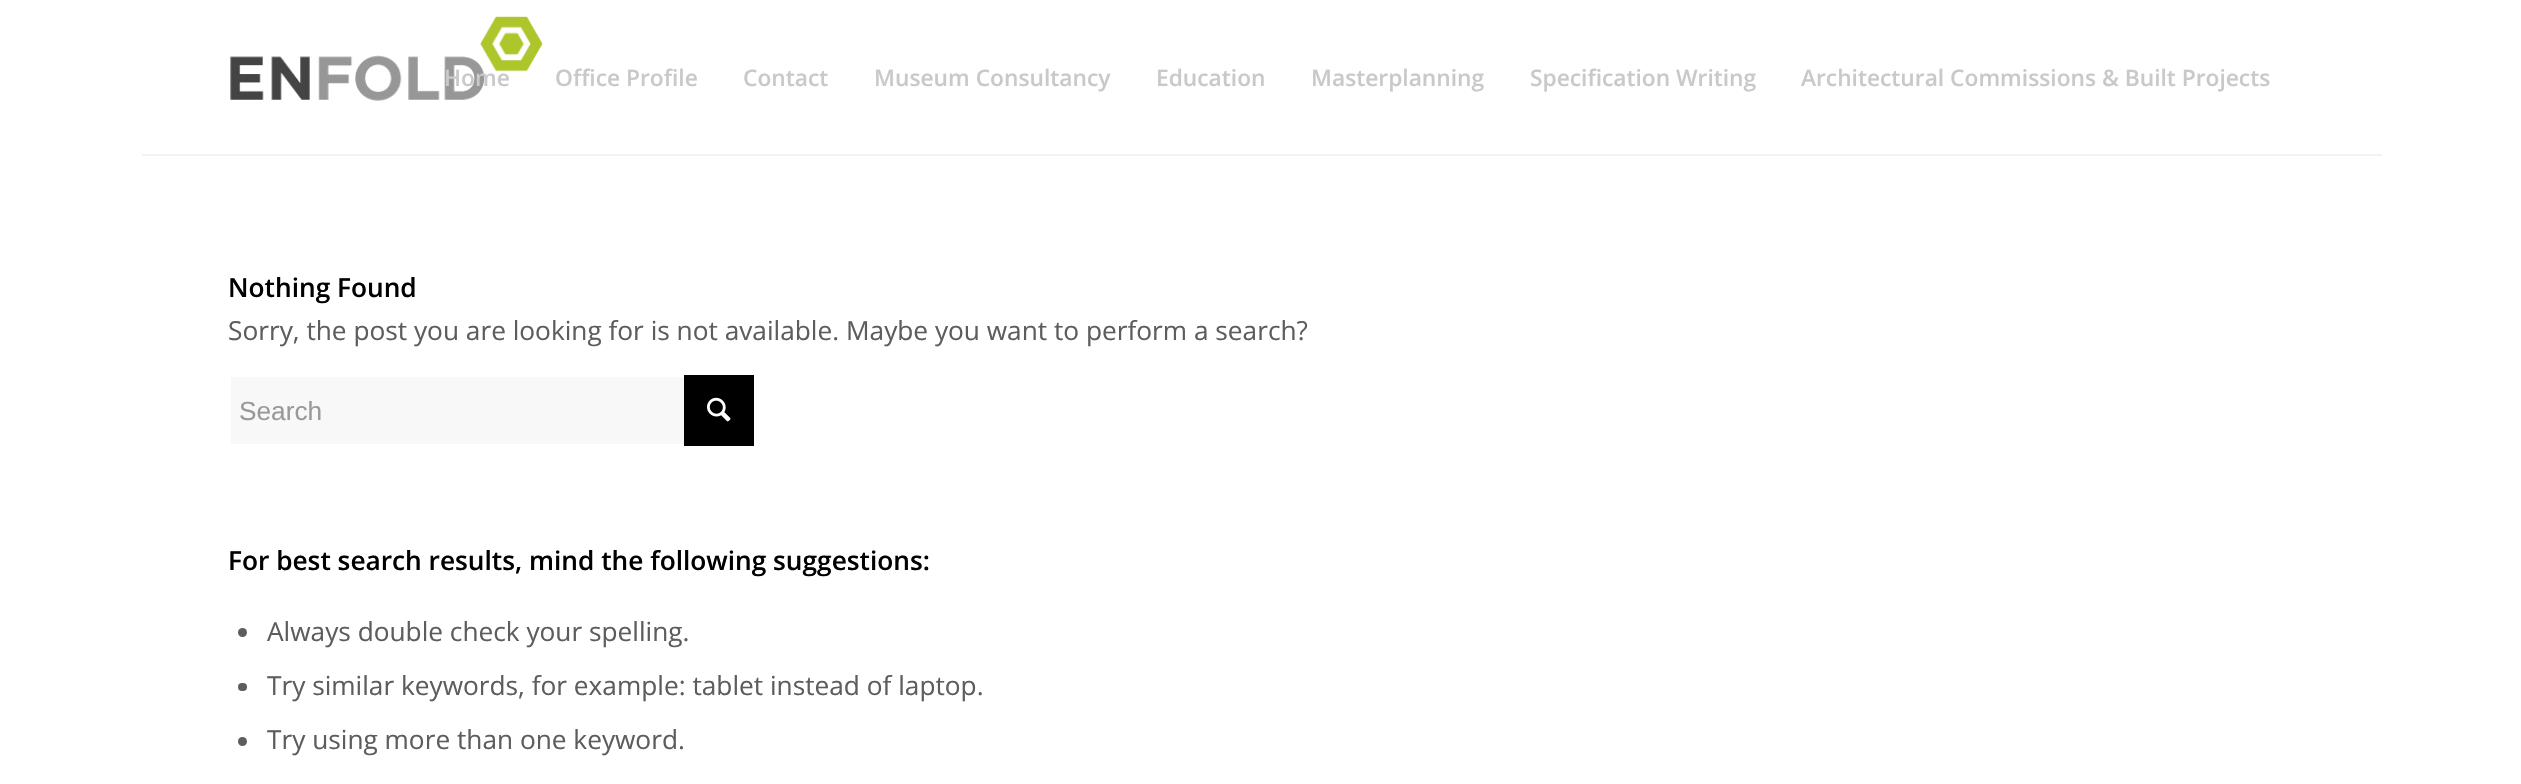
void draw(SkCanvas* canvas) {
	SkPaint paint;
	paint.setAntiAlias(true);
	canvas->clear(0xffffffff);
	paint.setColor(0xfff2f2f2);
	canvas->drawRect(SkRect::MakeXYWH(142, 154, 2240, 2), paint);
	canvas->drawImageRect(SkImages::DeferredFromEncodedData(SkData::MakeFromFileName("img1.png")), SkRect::MakeXYWH(230, 16, 313, 85), SkSamplingOptions());
	SkFont f1(fontMgr->matchFamilyStyle("Open Sans", SkFontStyle(600, SkFontStyle::kNormal_Width, SkFontStyle::kUpright_Slant)), 22.75);
	f1.setSubpixel(true);
	paint.setColor(0xffc9c9c9);
	canvas->drawString("Home", 444, 86, f1, paint);
	canvas->drawString("Office Profile", 555, 86, f1, paint);
	canvas->drawString("Contact", 743, 86, f1, paint);
	canvas->drawString("Museum Consultancy", 874, 86, f1, paint);
	canvas->drawString("Education", 1156, 86, f1, paint);
	canvas->drawString("Masterplanning", 1311, 86, f1, paint);
	canvas->drawString("Specification Writing", 1530, 86, f1, paint);
	canvas->drawString("Architectural Commissions & Built Projects", 1801, 86, f1, paint);
	SkFont f2(fontMgr->matchFamilyStyle("Open Sans", SkFontStyle(600, SkFontStyle::kNormal_Width, SkFontStyle::kUpright_Slant)), 26.25);
	f2.setSubpixel(true);
	paint.setColor(0xff000000);
	canvas->drawString("Nothing Found", 228, 297, f2, paint);
	SkFont f3(fontMgr->matchFamilyStyle("Open Sans", SkFontStyle::Normal()), 26.25);
	f3.setSubpixel(true);
	paint.setColor(0xff5e5d5e);
	canvas->drawString("Sorry, the post you are looking for is not available. Maybe you want to perform a search?", 228, 340, f3, paint);
	paint.setColor(0xfff8f8f8);
	canvas->drawRect(SkRect::MakeXYWH(231, 377, 453, 67), paint);
	SkFont f4(fontMgr->matchFamilyStyle("Liberation Sans", SkFontStyle::Normal()), 26.25);
	f4.setSubpixel(true);
	paint.setColor(0xff999999);
	canvas->drawString("Search", 239, 420, f4, paint);
	paint.setColor(0xff000000);
	canvas->drawRect(SkRect::MakeXYWH(684, 375, 70, 71), paint);
	canvas->drawImageRect(SkImages::DeferredFromEncodedData(SkData::MakeFromFileName("img2.png")), SkRect::MakeXYWH(707, 397, 24, 25), SkSamplingOptions());
	canvas->drawString("For best search results, mind the following suggestions:", 228, 570, f2, paint);
	paint.setColor(0xff5e5d5e);
	canvas->drawCircle(242.5, 632.5, 4.5, paint);
	canvas->drawString("Always double check your spelling.", 267, 641, f3, paint);
	canvas->drawRoundRect(SkRect::MakeXYWH(238, 683, 9, 8), 4, 4, paint);
	canvas->drawString("Try similar keywords, for example: tablet instead of laptop.", 267, 695, f3, paint);
	canvas->drawCircle(242.5, 741.5, 4.5, paint);
	canvas->drawString("Try using more than one keyword.", 267, 749, f3, paint);
}
